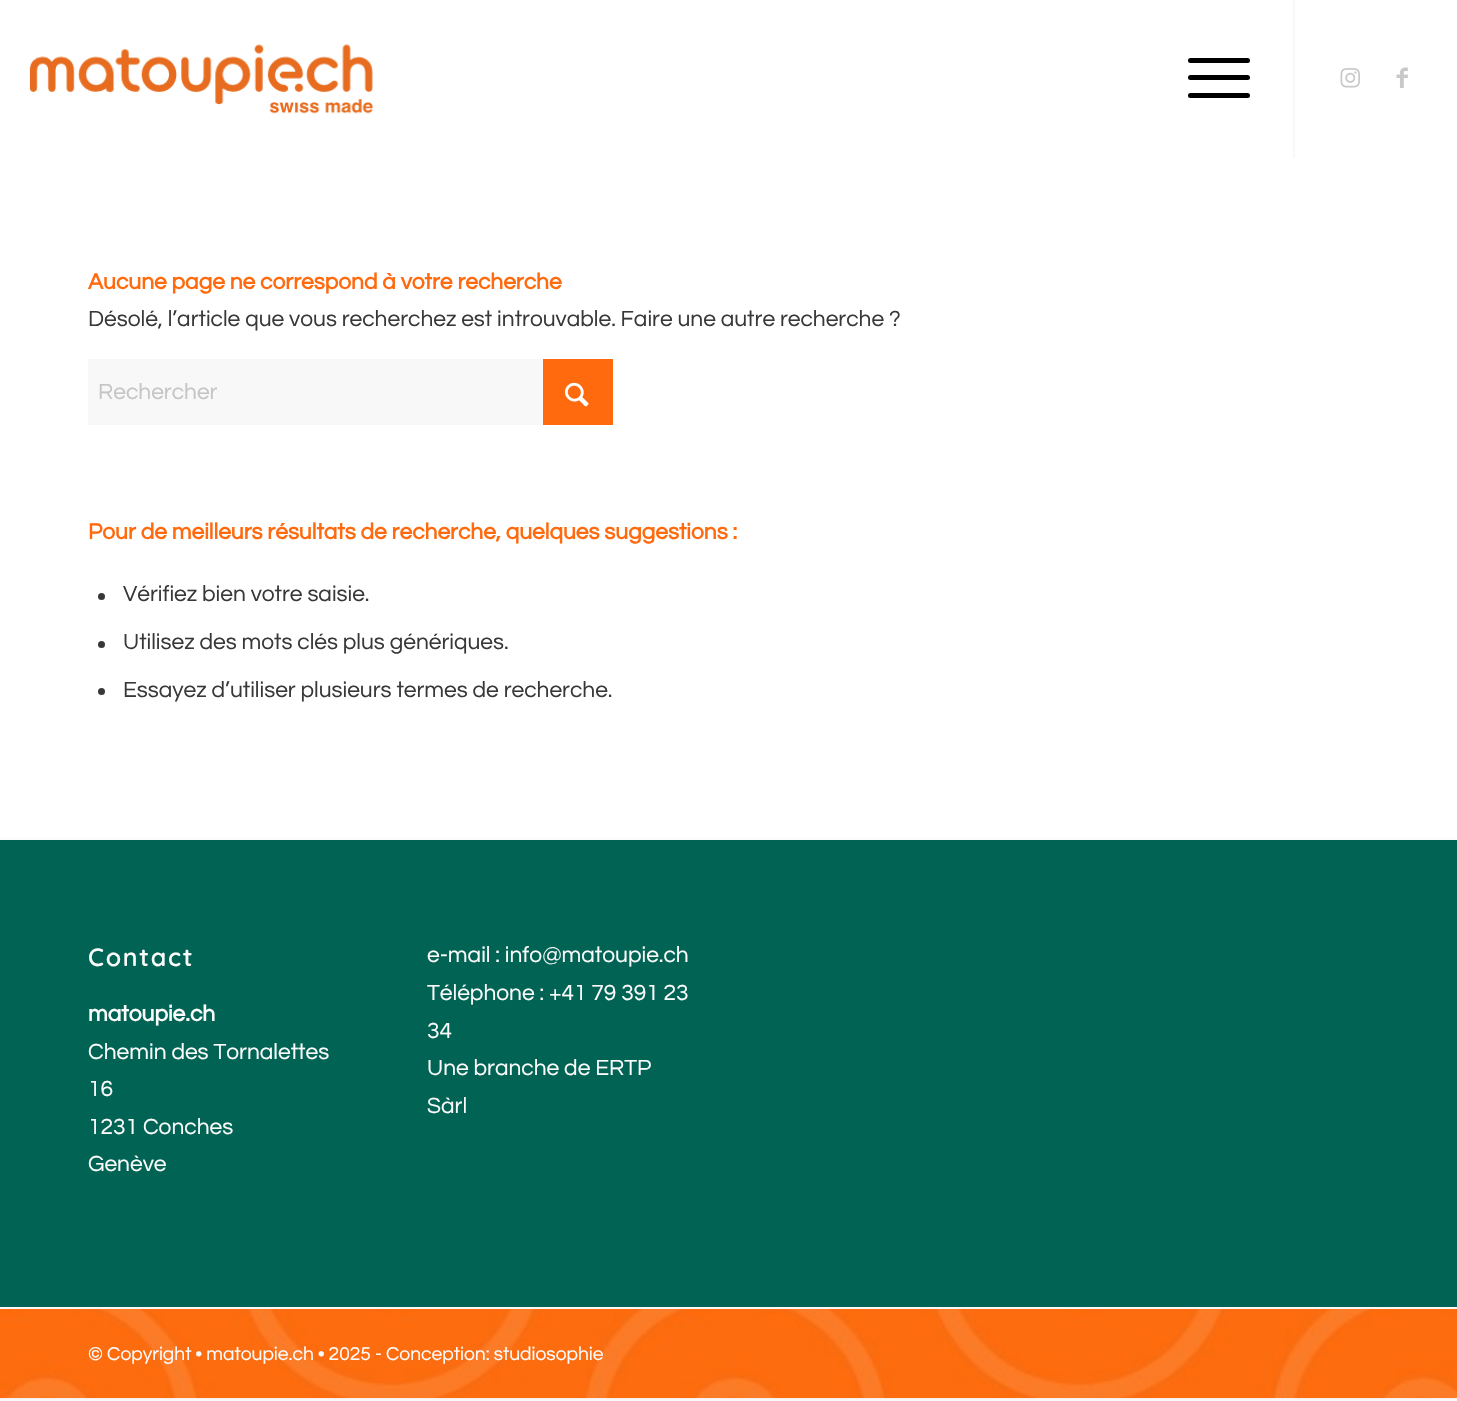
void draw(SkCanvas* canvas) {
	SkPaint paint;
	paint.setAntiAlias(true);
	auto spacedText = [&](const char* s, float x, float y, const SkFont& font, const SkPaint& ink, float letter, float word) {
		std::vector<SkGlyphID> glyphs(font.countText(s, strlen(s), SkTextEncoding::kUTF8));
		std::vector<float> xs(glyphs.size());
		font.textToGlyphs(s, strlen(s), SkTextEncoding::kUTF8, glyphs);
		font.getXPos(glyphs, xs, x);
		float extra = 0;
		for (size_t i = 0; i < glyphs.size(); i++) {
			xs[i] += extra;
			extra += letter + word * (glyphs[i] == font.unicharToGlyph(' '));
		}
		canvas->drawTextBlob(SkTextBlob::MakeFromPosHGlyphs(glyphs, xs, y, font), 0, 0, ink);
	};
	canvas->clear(0xfff8f8f8);
	paint.setColor(0xffffffff);
	canvas->drawRect(SkRect::MakeXYWH(0, 0, 1457, 838), paint);
	canvas->drawImageRect(SkImages::DeferredFromEncodedData(SkData::MakeFromFileName("img1.png")), SkRect::MakeXYWH(29, 44, 344, 70), SkSamplingOptions());
	paint.setColor(0xfff8f8f8);
	canvas->drawRect(SkRect::MakeXYWH(1293, 0, 2, 158), paint);
	paint.setColor(0xff000000);
	canvas->drawRoundRect(SkRect::MakeXYWH(1188, 75, 62, 5), 2.5, 2.5, paint);
	canvas->drawRoundRect(SkRect::MakeXYWH(1188, 58, 62, 5), 2.5, 2.5, paint);
	canvas->drawRoundRect(SkRect::MakeXYWH(1188, 93, 62, 5), 2.5, 2.5, paint);
	canvas->drawImageRect(SkImages::DeferredFromEncodedData(SkData::MakeFromFileName("img2.png")), SkRect::MakeXYWH(1340, 68, 20, 20), SkSamplingOptions());
	canvas->drawImageRect(SkImages::DeferredFromEncodedData(SkData::MakeFromFileName("img3.png")), SkRect::MakeXYWH(1396, 67, 12, 21), SkSamplingOptions());
	SkFont f1(fontMgr->matchFamilyStyle("Questrial", SkFontStyle::Bold()), 22.75);
	f1.setSubpixel(true);
	paint.setColor(0xffff6a0e);
	canvas->drawString("Aucune page ne correspond à votre recherche", 88, 289, f1, paint);
	SkFont f2(fontMgr->matchFamilyStyle("Questrial", SkFontStyle::Normal()), 22.75);
	f2.setSubpixel(true);
	paint.setColor(0xff383838);
	canvas->drawString("Désolé, l’article que vous recherchez est introuvable. Faire une autre recherche ?", 88, 326, f2, paint);
	paint.setColor(0xffff6a0e);
	canvas->drawRect(SkRect::MakeXYWH(543, 359, 70, 66), paint);
	paint.setColor(0xfff8f8f8);
	canvas->drawRect(SkRect::MakeXYWH(88, 359, 455, 66), paint);
	paint.setColor(0xffc5c5c5);
	canvas->drawString("Rechercher", 98, 399, f2, paint);
	canvas->drawImageRect(SkImages::DeferredFromEncodedData(SkData::MakeFromFileName("img4.png")), SkRect::MakeXYWH(565, 382, 24, 25), SkSamplingOptions());
	paint.setColor(0xffff6a0e);
	canvas->drawString("Pour de meilleurs résultats de recherche, quelques suggestions :", 88, 539, f1, paint);
	paint.setColor(0xff383838);
	canvas->drawCircle(101.5, 596.5, 3.5, paint);
	canvas->drawString("Vérifiez bien votre saisie.", 123, 601, f2, paint);
	canvas->drawCircle(101.5, 644.5, 3.5, paint);
	canvas->drawString("Utilisez des mots clés plus génériques.", 123, 649, f2, paint);
	canvas->drawCircle(101.5, 691.5, 3.5, paint);
	canvas->drawString("Essayez d’utiliser plusieurs termes de recherche.", 123, 697, f2, paint);
	paint.setColor(0xff006353);
	canvas->drawRect(SkRect::MakeXYWH(0, 840, 1457, 467), paint);
	paint.setColor(0xfffcfcfc);
	canvas->drawRect(SkRect::MakeXYWH(0, 838, 1457, 2), paint);
	SkFont f3(fontMgr->matchFamilyStyle("Quicksand", SkFontStyle(600, SkFontStyle::kNormal_Width, SkFontStyle::kUpright_Slant)), 25);
	f3.setSubpixel(true);
	spacedText("Contact", 88, 966, f3, paint, 1.75, 0);
	canvas->drawString("matoupie.ch", 88, 1021, f1, paint);
	canvas->drawString("Chemin des Tornalettes", 88, 1059, f2, paint);
	canvas->drawString("16", 88, 1096, f2, paint);
	canvas->drawString("1231 Conches", 88, 1134, f2, paint);
	canvas->drawString("Genève", 88, 1171, f2, paint);
	canvas->drawString("e-mail : info@matoupie.ch", 427, 962, f2, paint);
	canvas->drawString("Téléphone : +41 79 391 23", 427, 1000, f2, paint);
	canvas->drawString("34", 427, 1038, f2, paint);
	canvas->drawString("Une branche de ERTP", 427, 1075, f2, paint);
	canvas->drawString("Sàrl", 427, 1113, f2, paint);
	canvas->drawImageRect(SkImages::DeferredFromEncodedData(SkData::MakeFromFileName("img5.png")), SkRect::MakeXYWH(0, 1309, 1457, 90), SkSamplingOptions());
	SkFont f4(fontMgr->matchFamilyStyle("Questrial", SkFontStyle::Normal()), 19.25);
	f4.setSubpixel(true);
	canvas->drawString("© Copyright • matoupie.ch • 2025 -", 88, 1360, f4, paint);
	canvas->drawString("Conception: studiosophie", 386, 1360, f4, paint);
}
